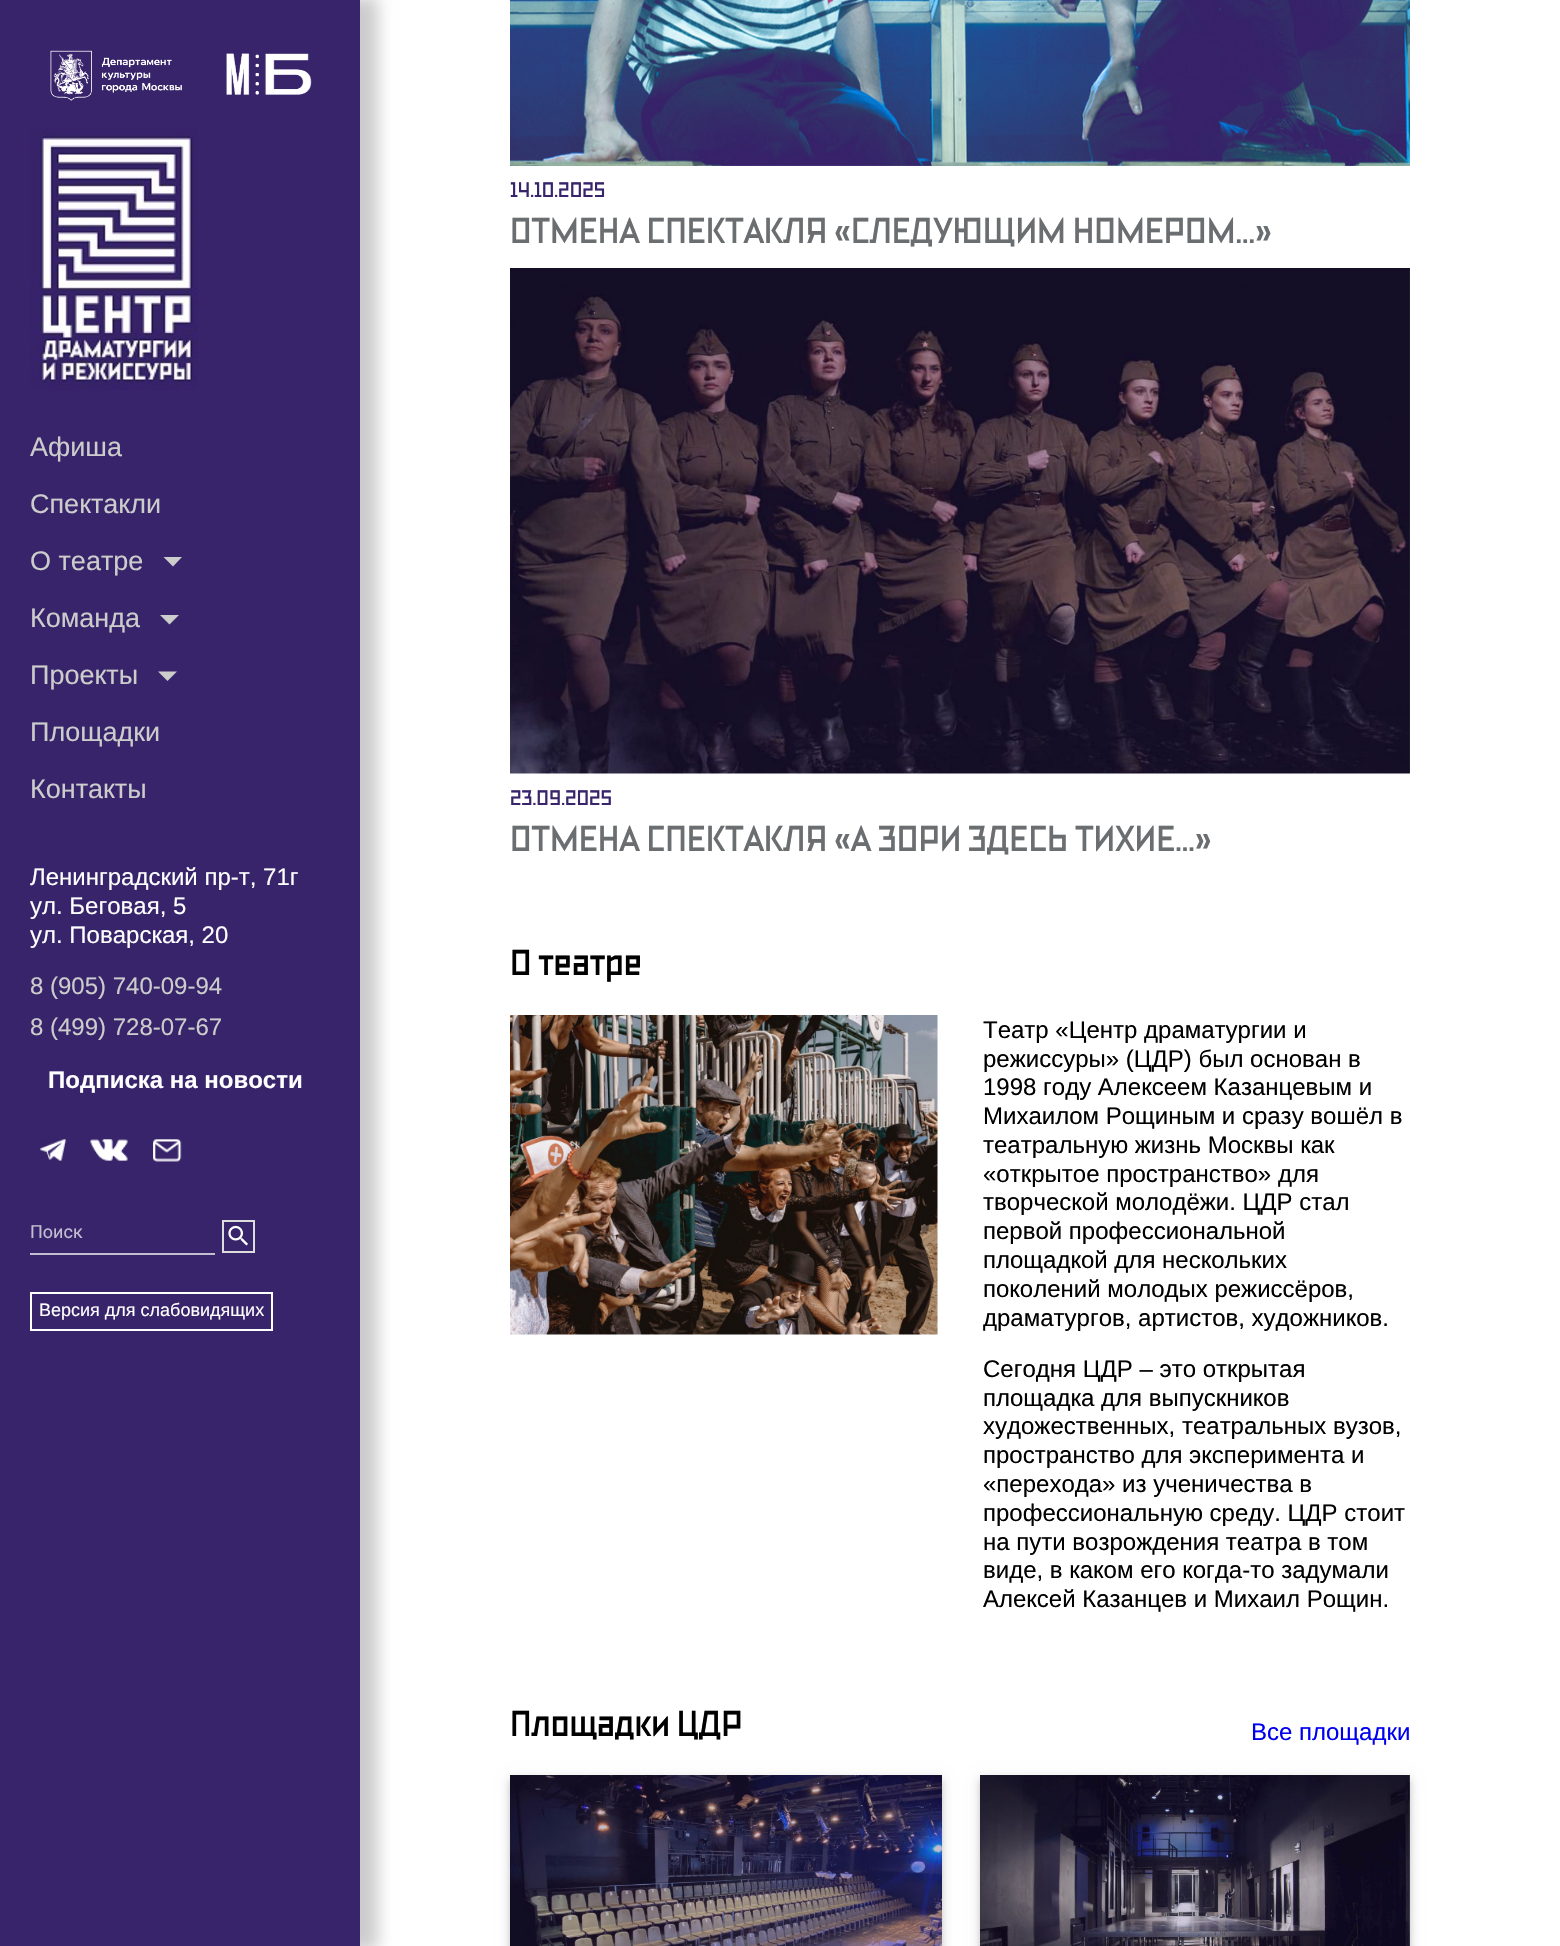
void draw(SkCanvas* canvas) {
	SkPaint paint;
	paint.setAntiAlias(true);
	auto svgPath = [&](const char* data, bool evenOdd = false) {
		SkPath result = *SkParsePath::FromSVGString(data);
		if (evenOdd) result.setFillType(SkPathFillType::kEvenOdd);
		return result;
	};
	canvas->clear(0xffffffff);
	paint.setColor(0x33000000);
	paint.setMaskFilter(SkMaskFilter::MakeBlur(kNormal_SkBlurStyle, 7.5));
	canvas->drawRect(SkRect::MakeXYWH(12, -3, 366, 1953), paint);
	paint.setMaskFilter(nullptr);
	paint.setColor(0xff37246a);
	canvas->drawRect(SkRect::MakeXYWH(0, 0, 360, 1946), paint);
	canvas->drawImageRect(SkImages::DeferredFromEncodedData(SkData::MakeFromFileName("img1.png")), SkRect::MakeXYWH(50, 50, 132, 51), SkSamplingOptions());
	canvas->drawImageRect(SkImages::DeferredFromEncodedData(SkData::MakeFromFileName("img2.png")), SkRect::MakeXYWH(226, 53, 86, 42), SkSamplingOptions());
	canvas->drawImageRect(SkImages::DeferredFromEncodedData(SkData::MakeFromFileName("img3.png")), SkRect::MakeXYWH(30, 128, 168, 262), SkSamplingOptions());
	SkFont f1(fontMgr->matchFamilyStyle("Liberation Sans", SkFontStyle::Normal()), 27);
	f1.setSubpixel(true);
	paint.setColor(0xffcccccc);
	canvas->drawString("Афиша", 30, 456, f1, paint);
	canvas->drawString("Спектакли", 30, 513, f1, paint);
	canvas->drawString("О театре", 30, 570, f1, paint);
	canvas->drawPath(svgPath("M163.5 557L173 566.5L182 557Z"), paint);
	canvas->drawString("Команда", 30, 627, f1, paint);
	canvas->drawPath(svgPath("M160 615L169.5 624.5L179 615Z"), paint);
	canvas->drawString("Проекты", 30, 684, f1, paint);
	canvas->drawPath(svgPath("M158 671.5L167.5 681L177 671.5Z"), paint);
	canvas->drawString("Площадки", 30, 741, f1, paint);
	canvas->drawString("Контакты", 30, 798, f1, paint);
	SkFont f2(fontMgr->matchFamilyStyle("Liberation Sans", SkFontStyle::Normal()), 24);
	f2.setSubpixel(true);
	paint.setColor(0xffffffff);
	canvas->drawString("Ленинградский пр-т, 71г", 30, 885, f2, paint);
	canvas->drawString("ул. Беговая, 5", 30, 914, f2, paint);
	canvas->drawString("ул. Поварская, 20", 30, 943, f2, paint);
	paint.setColor(0xffcccccc);
	canvas->drawString("8 (905) 740-09-94", 30, 994, f2, paint);
	canvas->drawString("8 (499) 728-07-67", 30, 1035, f2, paint);
	SkFont f3(fontMgr->matchFamilyStyle("Liberation Sans", SkFontStyle::Bold()), 24);
	f3.setSubpixel(true);
	paint.setColor(0xffffffff);
	canvas->drawString("Подписка на новости", 48, 1088, f3, paint);
	canvas->drawImageRect(SkImages::DeferredFromEncodedData(SkData::MakeFromFileName("img4.png")), SkRect::MakeXYWH(40, 1139, 27, 22), SkSamplingOptions());
	canvas->drawImageRect(SkImages::DeferredFromEncodedData(SkData::MakeFromFileName("img5.png")), SkRect::MakeXYWH(90, 1139, 38, 22), SkSamplingOptions());
	canvas->drawImageRect(SkImages::DeferredFromEncodedData(SkData::MakeFromFileName("img6.png")), SkRect::MakeXYWH(153, 1139, 29, 23), SkSamplingOptions());
	SkFont f4(fontMgr->matchFamilyStyle("Roboto", SkFontStyle::Normal()), 18);
	f4.setSubpixel(true);
	paint.setColor(0xffc3bdd2);
	canvas->drawString("Поиск", 30, 1238, f4, paint);
	canvas->drawRect(SkRect::MakeXYWH(30, 1253, 185, 2), paint);
	paint.setStroke(true);
	paint.setStrokeWidth(2);
	paint.setColor(0xffdddddd);
	canvas->drawRect(SkRect::MakeXYWH(223, 1221, 31, 31), paint);
	canvas->drawImageRect(SkImages::DeferredFromEncodedData(SkData::MakeFromFileName("img7.png")), SkRect::MakeXYWH(228, 1225, 20, 21), SkSamplingOptions());
	paint.setColor(0xffffffff);
	canvas->drawRect(SkRect::MakeXYWH(31, 1293, 241, 37), paint);
	SkFont f5(fontMgr->matchFamilyStyle("Liberation Sans", SkFontStyle::Normal()), 18);
	f5.setSubpixel(true);
	paint.setStroke(false);
	canvas->drawString("Версия для слабовидящих", 39, 1316, f5, paint);
	canvas->drawImageRect(SkImages::DeferredFromEncodedData(SkData::MakeFromFileName("img8.png")), SkRect::MakeXYWH(510, 0, 900, 166), SkSamplingOptions());
	SkFont f6(fontMgr->matchFamilyStyle("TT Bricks", SkFontStyle::Bold()), 21);
	f6.setSubpixel(true);
	paint.setColor(0xff37246a);
	canvas->drawString("14.10.2025", 510, 197, f6, paint);
	SkFont f7(fontMgr->matchFamilyStyle("TT Bricks", SkFontStyle::Bold()), 36);
	f7.setSubpixel(true);
	paint.setColor(0xff6b6e70);
	canvas->drawString("ОТМЕНА СПЕКТАКЛЯ «СЛЕДУЮЩИМ НОМЕРОМ...»", 510, 243, f7, paint);
	canvas->drawImageRect(SkImages::DeferredFromEncodedData(SkData::MakeFromFileName("img9.png")), SkRect::MakeXYWH(510, 268, 900, 506), SkSamplingOptions());
	paint.setColor(0xff37246a);
	canvas->drawString("23.09.2025", 510, 805, f6, paint);
	paint.setColor(0xff6b6e70);
	canvas->drawString("ОТМЕНА СПЕКТАКЛЯ «А ЗОРИ ЗДЕСЬ ТИХИЕ...»", 510, 851, f7, paint);
	paint.setColor(0xff000000);
	canvas->drawString("О театре", 510, 975, f7, paint);
	canvas->drawImageRect(SkImages::DeferredFromEncodedData(SkData::MakeFromFileName("img10.png")), SkRect::MakeXYWH(510, 1015, 428, 320), SkSamplingOptions());
	canvas->drawString("Театр «Центр драматургии и", 983, 1038, f2, paint);
	canvas->drawString("режиссуры» (ЦДР) был основан в", 983, 1067, f2, paint);
	canvas->drawString("1998 году Алексеем Казанцевым и", 983, 1095, f2, paint);
	canvas->drawString("Михаилом Рощиным и сразу вошёл в", 983, 1124, f2, paint);
	canvas->drawString("театральную жизнь Москвы как", 983, 1153, f2, paint);
	canvas->drawString("«открытое пространство» для", 983, 1182, f2, paint);
	canvas->drawString("творческой молодёжи. ЦДР стал", 983, 1210, f2, paint);
	canvas->drawString("первой профессиональной", 983, 1239, f2, paint);
	canvas->drawString("площадкой для нескольких", 983, 1268, f2, paint);
	canvas->drawString("поколений молодых режиссёров,", 983, 1297, f2, paint);
	canvas->drawString("драматургов, артистов, художников.", 983, 1326, f2, paint);
	canvas->drawString("Сегодня ЦДР – это открытая", 983, 1377, f2, paint);
	canvas->drawString("площадка для выпускников", 983, 1406, f2, paint);
	canvas->drawString("художественных, театральных вузов,", 983, 1434, f2, paint);
	canvas->drawString("пространство для эксперимента и", 983, 1463, f2, paint);
	canvas->drawString("«перехода» из ученичества в", 983, 1492, f2, paint);
	canvas->drawString("профессиональную среду. ЦДР стоит", 983, 1521, f2, paint);
	canvas->drawString("на пути возрождения театра в том", 983, 1550, f2, paint);
	canvas->drawString("виде, в каком его когда-то задумали", 983, 1578, f2, paint);
	canvas->drawString("Алексей Казанцев и Михаил Рощин.", 983, 1607, f2, paint);
	canvas->drawString("Площадки ЦДР", 510, 1736, f7, paint);
	paint.setColor(0xff0000ee);
	canvas->drawString("Все площадки", 1251, 1740, f2, paint);
	paint.setColor(0x1f000000);
	paint.setMaskFilter(SkMaskFilter::MakeBlur(kNormal_SkBlurStyle, 6));
	canvas->drawRect(SkRect::MakeXYWH(510, 1778, 432, 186), paint);
	paint.setMaskFilter(nullptr);
	paint.setColor(0x24000000);
	paint.setMaskFilter(SkMaskFilter::MakeBlur(kNormal_SkBlurStyle, 3));
	canvas->drawRect(SkRect::MakeXYWH(510, 1781, 432, 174), paint);
	paint.setMaskFilter(nullptr);
	canvas->drawImageRect(SkImages::DeferredFromEncodedData(SkData::MakeFromFileName("img11.png")), SkRect::MakeXYWH(510, 1775, 432, 171), SkSamplingOptions());
	paint.setColor(0x1f000000);
	paint.setMaskFilter(SkMaskFilter::MakeBlur(kNormal_SkBlurStyle, 6));
	canvas->drawRect(SkRect::MakeXYWH(980, 1778, 430, 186), paint);
	paint.setMaskFilter(nullptr);
	paint.setColor(0x24000000);
	paint.setMaskFilter(SkMaskFilter::MakeBlur(kNormal_SkBlurStyle, 3));
	canvas->drawRect(SkRect::MakeXYWH(980, 1781, 430, 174), paint);
	paint.setMaskFilter(nullptr);
	canvas->drawImageRect(SkImages::DeferredFromEncodedData(SkData::MakeFromFileName("img12.png")), SkRect::MakeXYWH(980, 1775, 430, 171), SkSamplingOptions());
}
